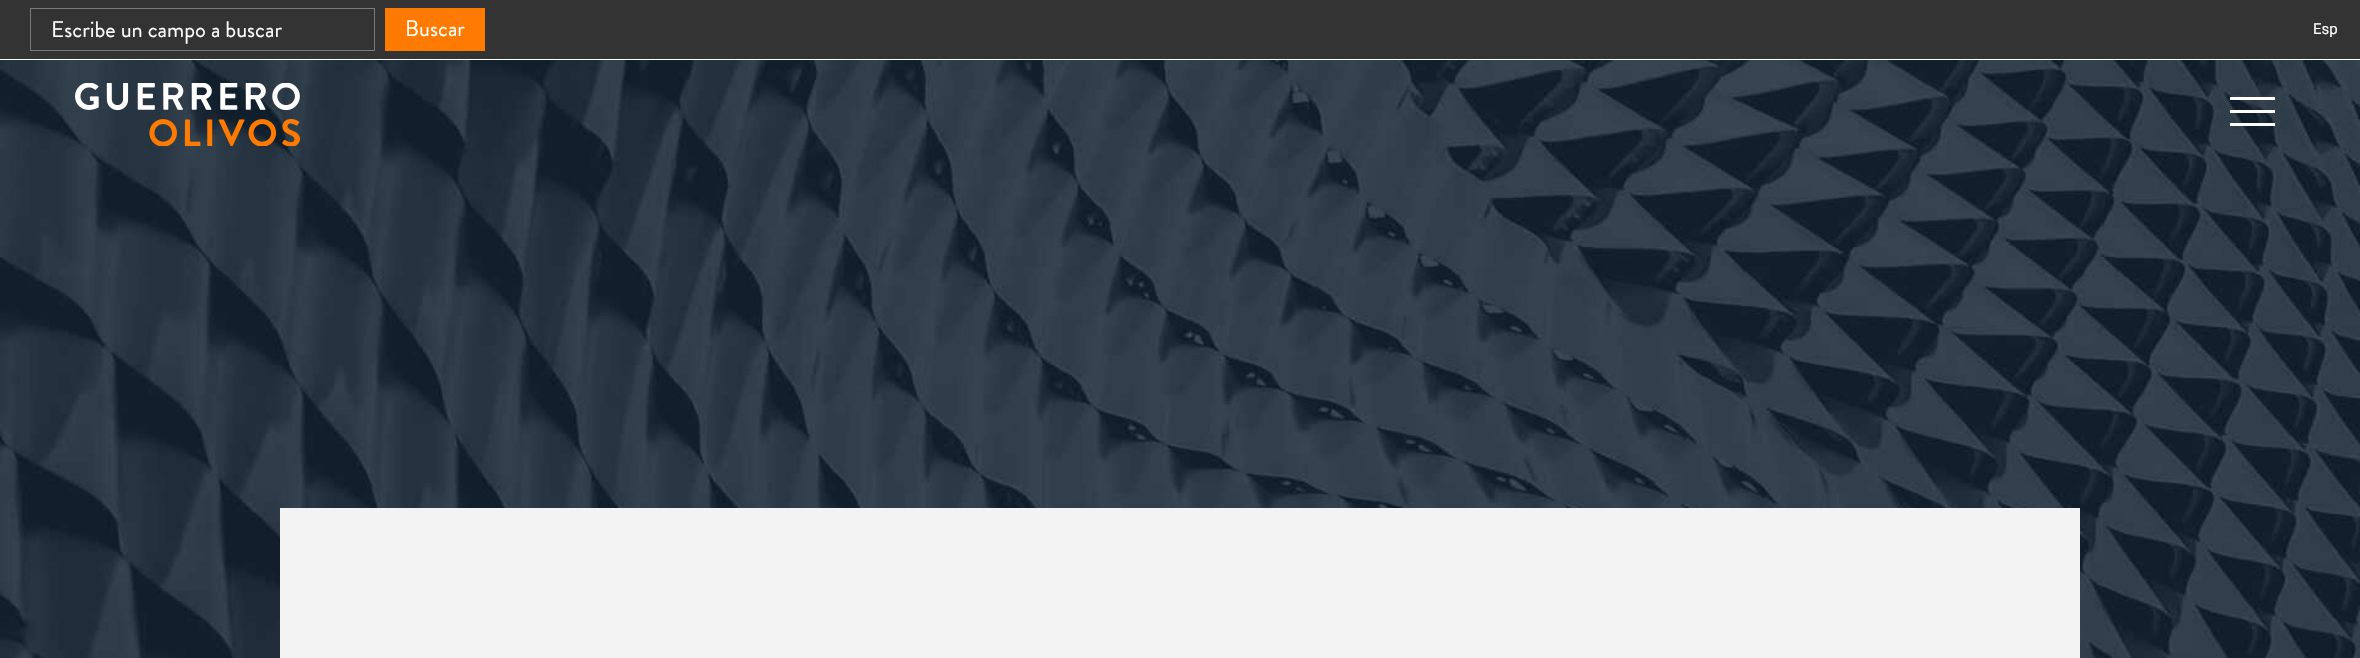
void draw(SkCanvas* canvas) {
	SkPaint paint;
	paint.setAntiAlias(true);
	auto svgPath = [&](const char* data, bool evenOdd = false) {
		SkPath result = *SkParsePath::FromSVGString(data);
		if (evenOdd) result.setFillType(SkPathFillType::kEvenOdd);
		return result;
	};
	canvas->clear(0xffffffff);
	paint.setColor(0xff333333);
	canvas->drawRect(SkRect::MakeXYWH(0, 0, 2360, 59), paint);
	paint.setStroke(true);
	paint.setStrokeWidth(1);
	paint.setColor(0xff7a7a7a);
	canvas->drawRect(SkRect::MakeXYWH(30.5, 8.5, 344, 42), paint);
	SkFont f1(fontMgr->matchFamilyStyle("Brandon Grotesque", SkFontStyle::Normal()), 22.5);
	f1.setSubpixel(true);
	paint.setStroke(false);
	paint.setColor(0xffffffff);
	canvas->drawString("Escribe un campo a buscar", 51, 37, f1, paint);
	paint.setColor(0xffff7a00);
	canvas->drawRect(SkRect::MakeXYWH(385, 8, 100, 43), paint);
	paint.setColor(0xffffffff);
	canvas->drawString("Buscar", 405, 36, f1, paint);
	SkFont f2(fontMgr->matchFamilyStyle("Roboto", SkFontStyle::Normal()), 15);
	f2.setSubpixel(true);
	canvas->drawString("Esp", 2313, 34, f2, paint);
	canvas->drawImageRect(SkImages::DeferredFromEncodedData(SkData::MakeFromFileName("img2.png")), SkRect::MakeXYWH(0, 60, 2360, 598), SkSamplingOptions());
	canvas->drawImageRect(SkImages::DeferredFromEncodedData(SkData::MakeFromFileName("img1.png")), SkRect::MakeXYWH(75, 83, 225, 63), SkSamplingOptions());
	canvas->drawPath(svgPath("M2230 100V97H2275V100ZM2275 110V113H2230V110ZM2230 123H2275V126H2230Z"), paint);
	paint.setColor(0xfff3f3f3);
	canvas->drawRect(SkRect::MakeXYWH(280, 508, 1800, 150), paint);
}
